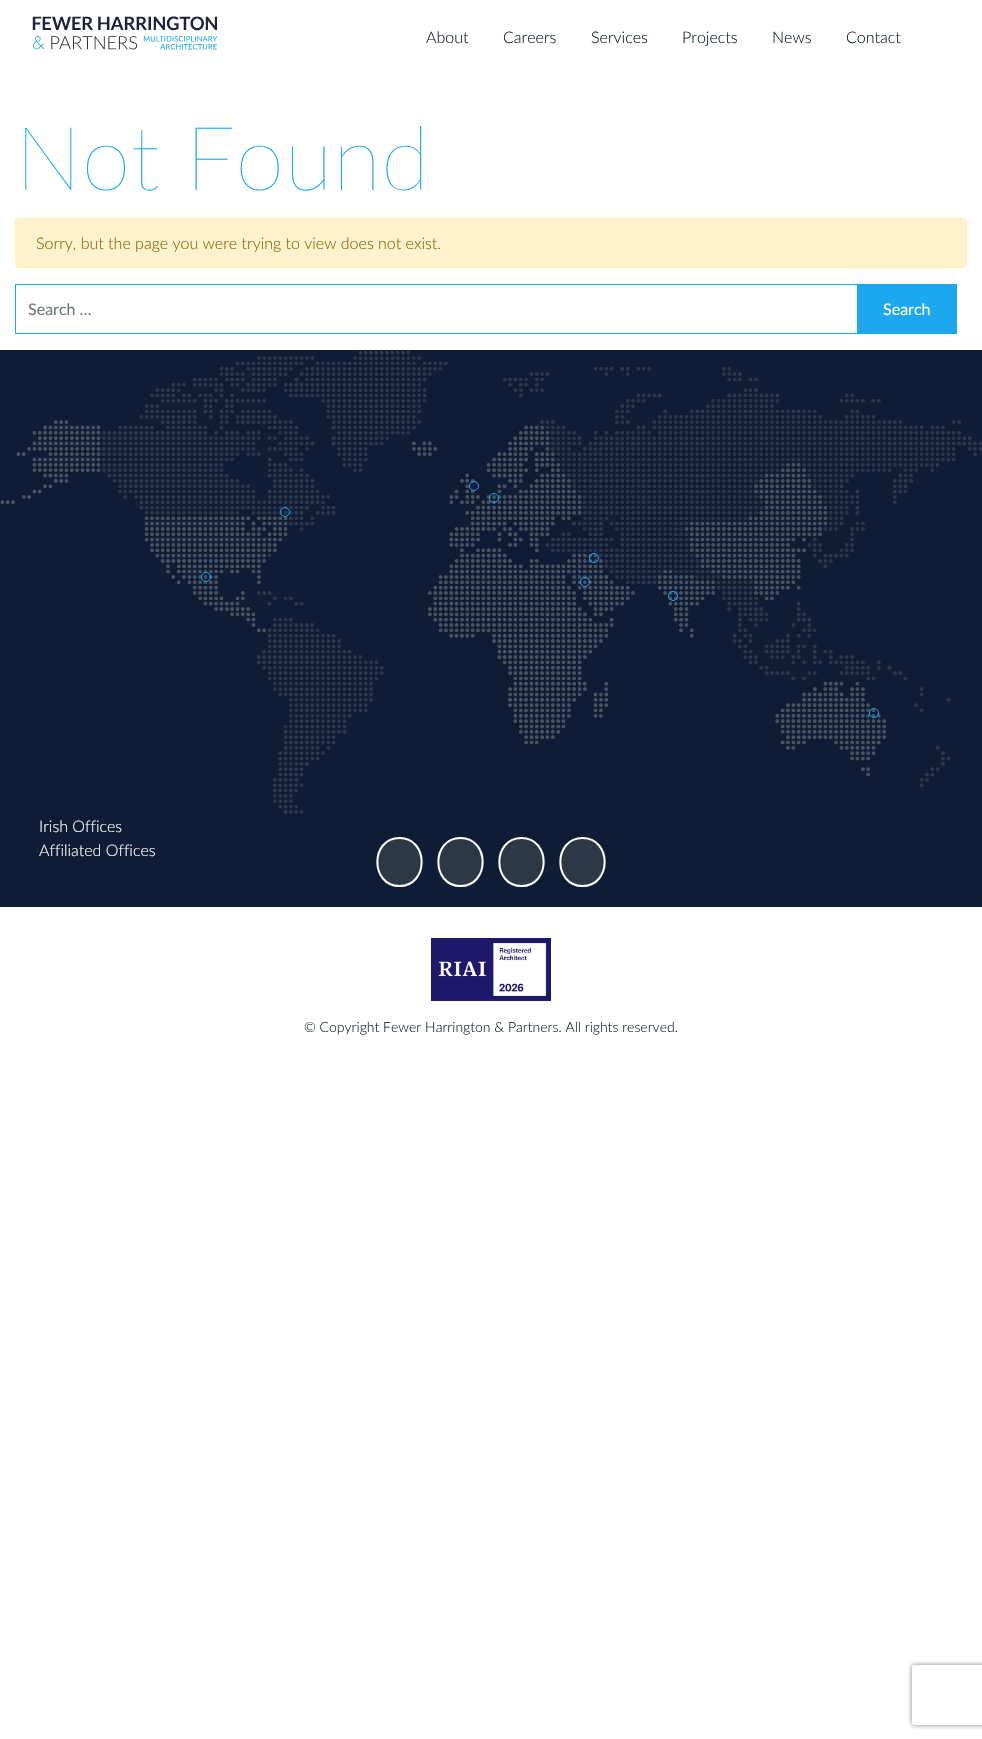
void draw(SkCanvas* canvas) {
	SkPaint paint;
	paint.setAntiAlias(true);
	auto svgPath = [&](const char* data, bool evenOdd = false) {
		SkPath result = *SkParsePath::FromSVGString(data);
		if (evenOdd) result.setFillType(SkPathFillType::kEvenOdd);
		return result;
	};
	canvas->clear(0xffffffff);
	canvas->drawImageRect(SkImages::DeferredFromEncodedData(SkData::MakeFromFileName("img1.png")), SkRect::MakeXYWH(32, 16, 186, 34), SkSamplingOptions());
	SkFont f1(fontMgr->matchFamilyStyle("Lato", SkFontStyle(300, SkFontStyle::kNormal_Width, SkFontStyle::kUpright_Slant)), 16);
	f1.setSubpixel(true);
	paint.setColor(0xff0e1c35);
	canvas->drawString("About", 426, 43, f1, paint);
	canvas->drawString("Careers", 503, 43, f1, paint);
	canvas->drawString("Services", 591, 43, f1, paint);
	canvas->drawString("Projects", 682, 43, f1, paint);
	canvas->drawString("News", 772, 43, f1, paint);
	canvas->drawString("Contact", 846, 43, f1, paint);
	SkFont f2(fontMgr->matchFamilyStyle("Lato", SkFontStyle(200, SkFontStyle::kNormal_Width, SkFontStyle::kUpright_Slant)), 89);
	f2.setSubpixel(true);
	paint.setColor(0xff1da7ef);
	canvas->drawString("Not Found", 15, 190, f2, paint);
	paint.setColor(0xfffff3cd);
	canvas->drawRoundRect(SkRect::MakeXYWH(15.5, 218.5, 951, 49), 3.5, 3.5, paint);
	paint.setStroke(true);
	paint.setStrokeWidth(1);
	paint.setColor(0xffffeeba);
	canvas->drawRoundRect(SkRect::MakeXYWH(15.5, 218.5, 951, 49), 3.5, 3.5, paint);
	paint.setStroke(false);
	paint.setColor(0xff856404);
	canvas->drawString("Sorry, but the page you were trying to view does not exist.", 36, 249, f1, paint);
	paint.setColor(0xff1da7ef);
	canvas->drawRect(SkRect::MakeXYWH(15, 284, 842, 1), paint);
	canvas->drawRect(SkRect::MakeXYWH(15, 333, 842, 1), paint);
	canvas->drawRect(SkRect::MakeXYWH(15, 284, 1, 50), paint);
	SkFont f3(fontMgr->matchFamilyStyle("Lato", SkFontStyle::Normal()), 16);
	f3.setSubpixel(true);
	paint.setColor(0xff6c757d);
	canvas->drawString("Search …", 28, 315, f3, paint);
	paint.setColor(0xff1da7ef);
	canvas->drawRect(SkRect::MakeXYWH(857, 284, 100, 50), paint);
	paint.setColor(0xffffffff);
	canvas->drawString("Search", 883, 315, f3, paint);
	paint.setColor(0xff0e1c35);
	canvas->drawRect(SkRect::MakeXYWH(0, 350, 982, 557), paint);
	canvas->drawImageRect(SkImages::DeferredFromEncodedData(SkData::MakeFromFileName("img2.png")), SkRect::MakeXYWH(0, 351, 982, 463), SkSamplingOptions());
	paint.setStroke(true);
	paint.setColor(0xff1da7ef);
	canvas->drawCircle(474, 486, 4.5, paint);
	canvas->drawCircle(494, 498, 4.5, paint);
	canvas->drawCircle(285, 512, 4.5, paint);
	canvas->drawCircle(594, 558, 4.5, paint);
	canvas->drawCircle(206, 577, 4.5, paint);
	canvas->drawCircle(585, 582, 4.5, paint);
	canvas->drawCircle(673, 596, 4.5, paint);
	canvas->drawCircle(874, 713, 4.5, paint);
	paint.setStroke(false);
	paint.setColor(0xffffffff);
	canvas->drawString("Irish Offices", 39, 832, f1, paint);
	canvas->drawString("Affiliated Offices", 39, 856, f1, paint);
	paint.setColor(0xff2c3846);
	canvas->drawOval(SkRect::MakeXYWH(376, 837, 47, 50), paint);
	paint.setStroke(true);
	paint.setStrokeWidth(2);
	paint.setColor(0xffffffff);
	canvas->drawPath(svgPath("M399.5 838C429 838 429 886 399.5 886C370 886 370 838 399.5 838Z"), paint);
	paint.setStroke(false);
	paint.setColor(0xff2c3846);
	canvas->drawOval(SkRect::MakeXYWH(437, 837, 47, 50), paint);
	paint.setStroke(true);
	paint.setColor(0xffffffff);
	canvas->drawPath(svgPath("M460.5 838C490 838 490 886 460.5 886C431 886 431 838 460.5 838Z"), paint);
	paint.setStroke(false);
	paint.setColor(0xff2c3846);
	canvas->drawOval(SkRect::MakeXYWH(498, 837, 47, 50), paint);
	paint.setStroke(true);
	paint.setColor(0xffffffff);
	canvas->drawPath(svgPath("M521.5 838C551 838 551 886 521.5 886C492 886 492 838 521.5 838Z"), paint);
	paint.setStroke(false);
	paint.setColor(0xff2c3846);
	canvas->drawOval(SkRect::MakeXYWH(559, 837, 47, 50), paint);
	paint.setStroke(true);
	paint.setColor(0xffffffff);
	canvas->drawPath(svgPath("M582.5 838C612 838 612 886 582.5 886C553 886 553 838 582.5 838Z"), paint);
	canvas->drawImageRect(SkImages::DeferredFromEncodedData(SkData::MakeFromFileName("img3.png")), SkRect::MakeXYWH(431, 938, 120, 63), SkSamplingOptions());
	SkFont f4(fontMgr->matchFamilyStyle("Lato", SkFontStyle(300, SkFontStyle::kNormal_Width, SkFontStyle::kUpright_Slant)), 14);
	f4.setSubpixel(true);
	paint.setStroke(false);
	paint.setColor(0xff0e1c35);
	canvas->drawString("© Copyright Fewer Harrington & Partners. All rights reserved.", 304, 1032, f4, paint);
	canvas->save();
	canvas->clipPath(svgPath("M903 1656H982V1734H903ZM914 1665H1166C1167 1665 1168 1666 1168 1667V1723C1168 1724 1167 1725 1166 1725H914C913 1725 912 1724 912 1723V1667C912 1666 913 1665 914 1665Z", true), true);
	paint.setColor(0xff808080);
	paint.setMaskFilter(SkMaskFilter::MakeBlur(kNormal_SkBlurStyle, 2.5));
	canvas->drawRoundRect(SkRect::MakeXYWH(912, 1665, 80, 60), 2, 2, paint);
	paint.setMaskFilter(nullptr);
	canvas->restore();
}
